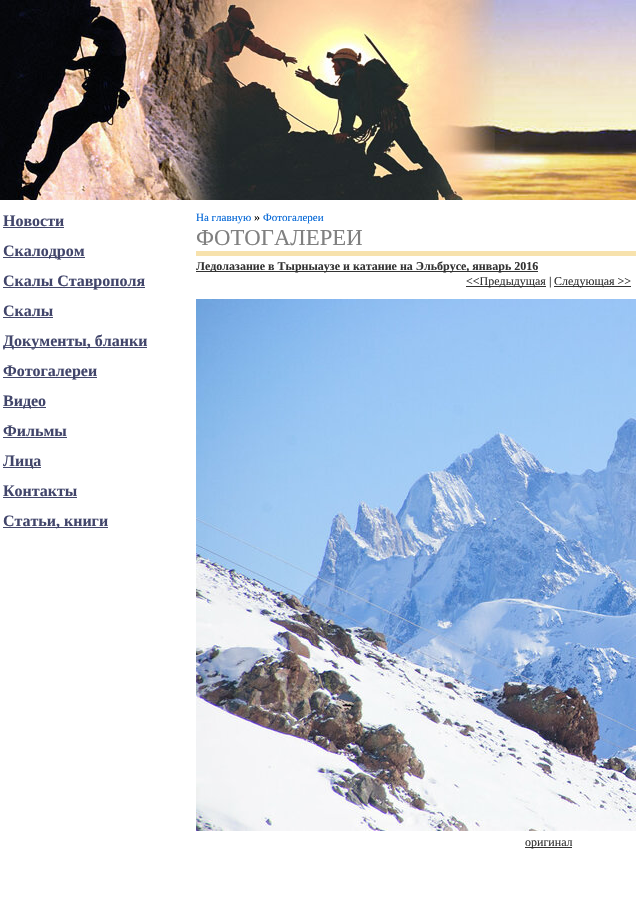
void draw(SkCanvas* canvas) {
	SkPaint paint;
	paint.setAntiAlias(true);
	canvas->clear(0xffffffff);
	canvas->drawImageRect(SkImages::DeferredFromEncodedData(SkData::MakeFromFileName("img1.png")), SkRect::MakeXYWH(0, 0, 636, 200), SkSamplingOptions());
	SkFont f1(fontMgr->matchFamilyStyle("Liberation Serif", SkFontStyle::Bold()), 16);
	f1.setSubpixel(true);
	paint.setColor(0xff42466b);
	canvas->drawString("Новости", 3, 226, f1, paint);
	canvas->drawRect(SkRect::MakeXYWH(3, 227, 61, 1), paint);
	canvas->drawRect(SkRect::MakeXYWH(3, 257, 82, 1), paint);
	canvas->drawString("Скалодром", 3, 256, f1, paint);
	canvas->drawRect(SkRect::MakeXYWH(3, 287, 142, 1), paint);
	canvas->drawString("Скалы Ставрополя", 3, 286, f1, paint);
	canvas->drawString("Скалы", 3, 316, f1, paint);
	canvas->drawRect(SkRect::MakeXYWH(3, 317, 50, 1), paint);
	canvas->drawRect(SkRect::MakeXYWH(3, 347, 144, 1), paint);
	canvas->drawString("Документы, бланки", 3, 346, f1, paint);
	canvas->drawRect(SkRect::MakeXYWH(3, 377, 94, 1), paint);
	canvas->drawString("Фотогалереи", 3, 376, f1, paint);
	canvas->drawRect(SkRect::MakeXYWH(3, 407, 43, 1), paint);
	canvas->drawString("Видео", 3, 406, f1, paint);
	canvas->drawString("Фильмы", 3, 436, f1, paint);
	canvas->drawRect(SkRect::MakeXYWH(3, 437, 64, 1), paint);
	canvas->drawRect(SkRect::MakeXYWH(3, 467, 38, 1), paint);
	canvas->drawString("Лица", 3, 466, f1, paint);
	canvas->drawString("Контакты", 3, 496, f1, paint);
	canvas->drawRect(SkRect::MakeXYWH(3, 497, 74, 1), paint);
	canvas->drawRect(SkRect::MakeXYWH(3, 527, 105, 1), paint);
	canvas->drawString("Статьи, книги", 3, 526, f1, paint);
	SkFont f2(fontMgr->matchFamilyStyle("Liberation Serif", SkFontStyle::Normal()), 11);
	f2.setSubpixel(true);
	paint.setColor(0xff0065d6);
	canvas->drawString("На главную", 196, 221, f2, paint);
	SkFont f3(fontMgr->matchFamilyStyle("Liberation Serif", SkFontStyle::Normal()), 12);
	f3.setSubpixel(true);
	paint.setColor(0xff000000);
	canvas->drawString("»", 254, 221, f3, paint);
	paint.setColor(0xff0065d6);
	canvas->drawString("Фотогалереи", 263, 221, f2, paint);
	SkFont f4(fontMgr->matchFamilyStyle("Liberation Serif", SkFontStyle::Normal()), 22.75);
	f4.setSubpixel(true);
	paint.setColor(0xff808080);
	canvas->drawString("ФОТОГАЛЕРЕИ", 196, 245, f4, paint);
	paint.setColor(0xfff7e2ad);
	canvas->drawRect(SkRect::MakeXYWH(196, 251, 440, 5), paint);
	paint.setColor(0xff333333);
	canvas->drawRect(SkRect::MakeXYWH(196, 271, 342, 1), paint);
	SkFont f5(fontMgr->matchFamilyStyle("Liberation Serif", SkFontStyle::Bold()), 12);
	f5.setSubpixel(true);
	canvas->drawString("Ледолазание в Тырныаузе и катание на Эльбрусе, январь 2016", 196, 270, f5, paint);
	canvas->drawRect(SkRect::MakeXYWH(466, 286, 80, 1), paint);
	canvas->drawString("<<Предыдущая", 466, 285, f3, paint);
	paint.setColor(0xff000000);
	canvas->drawString("|", 549, 285, f3, paint);
	paint.setColor(0xff333333);
	canvas->drawRect(SkRect::MakeXYWH(554, 286, 77, 1), paint);
	canvas->drawString("Следующая >>", 554, 285, f3, paint);
	canvas->drawImageRect(SkImages::DeferredFromEncodedData(SkData::MakeFromFileName("img2.png")), SkRect::MakeXYWH(196, 299, 440, 532), SkSamplingOptions());
	canvas->drawRect(SkRect::MakeXYWH(525, 847, 47, 1), paint);
	canvas->drawString("оригинал", 525, 846, f3, paint);
}
